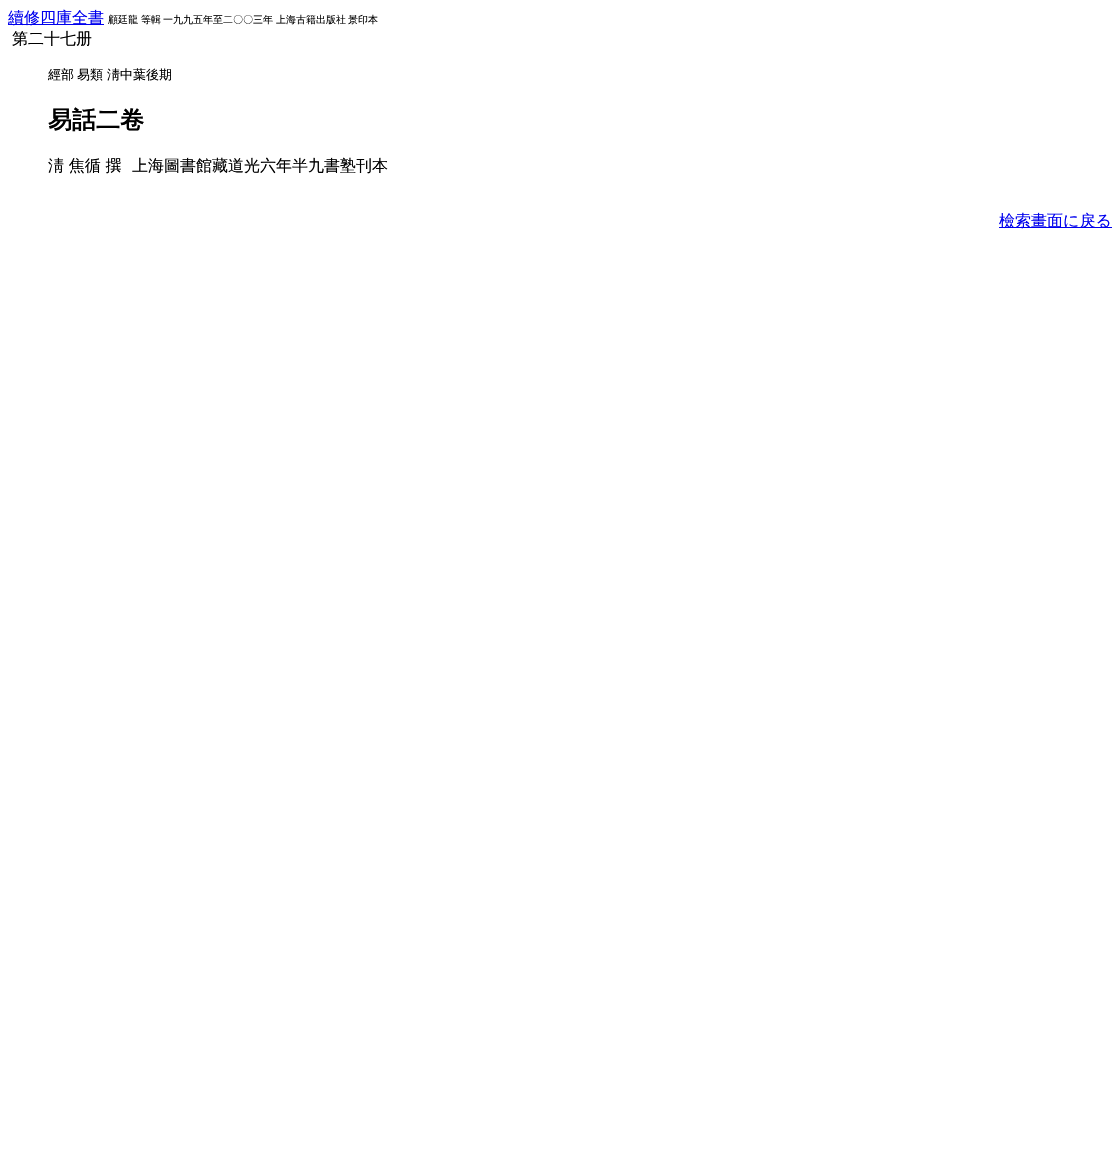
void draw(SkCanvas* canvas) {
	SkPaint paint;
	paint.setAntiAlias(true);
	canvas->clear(0xffffffff);
	paint.setColor(0xff0000ee);
	canvas->drawRect(SkRect::MakeXYWH(8, 24, 96, 1), paint);
	SkFont f1(fontMgr->matchFamilyStyle("WenQuanYi Zen Hei", SkFontStyle(500, SkFontStyle::kNormal_Width, SkFontStyle::kUpright_Slant)), 16);
	f1.setSubpixel(true);
	canvas->drawString("續修四庫全書", 8, 23, f1, paint);
	SkFont f2(fontMgr->matchFamilyStyle("WenQuanYi Zen Hei", SkFontStyle(500, SkFontStyle::kNormal_Width, SkFontStyle::kUpright_Slant)), 10);
	f2.setSubpixel(true);
	paint.setColor(0xff000000);
	canvas->drawString("顧廷龍 等輯", 108, 23, f2, paint);
	canvas->drawString("一九九五年至二〇〇三年", 163, 23, f2, paint);
	canvas->drawString("上海古籍出版社", 276, 23, f2, paint);
	canvas->drawString("景印本", 348, 23, f2, paint);
	canvas->drawString("第二十七册", 12, 44, f1, paint);
	SkFont f3(fontMgr->matchFamilyStyle("WenQuanYi Zen Hei", SkFontStyle(500, SkFontStyle::kNormal_Width, SkFontStyle::kUpright_Slant)), 13);
	f3.setSubpixel(true);
	canvas->drawString("經部", 48, 79, f3, paint);
	canvas->drawString("易類", 77, 79, f3, paint);
	canvas->drawString("淸中葉後期", 107, 79, f3, paint);
	SkFont f4(fontMgr->matchFamilyStyle("WenQuanYi Zen Hei", SkFontStyle::Bold()), 24);
	f4.setSubpixel(true);
	canvas->drawString("易話二卷", 48, 128, f4, paint);
	canvas->drawString("淸 焦循 撰", 48, 171, f1, paint);
	canvas->drawString("上海圖書館藏道光六年半九書塾刊本", 132, 171, f1, paint);
	paint.setColor(0xff0000ee);
	canvas->drawRect(SkRect::MakeXYWH(999, 227, 113, 1), paint);
	canvas->drawString("檢索畫面に戾る", 999, 226, f1, paint);
}
